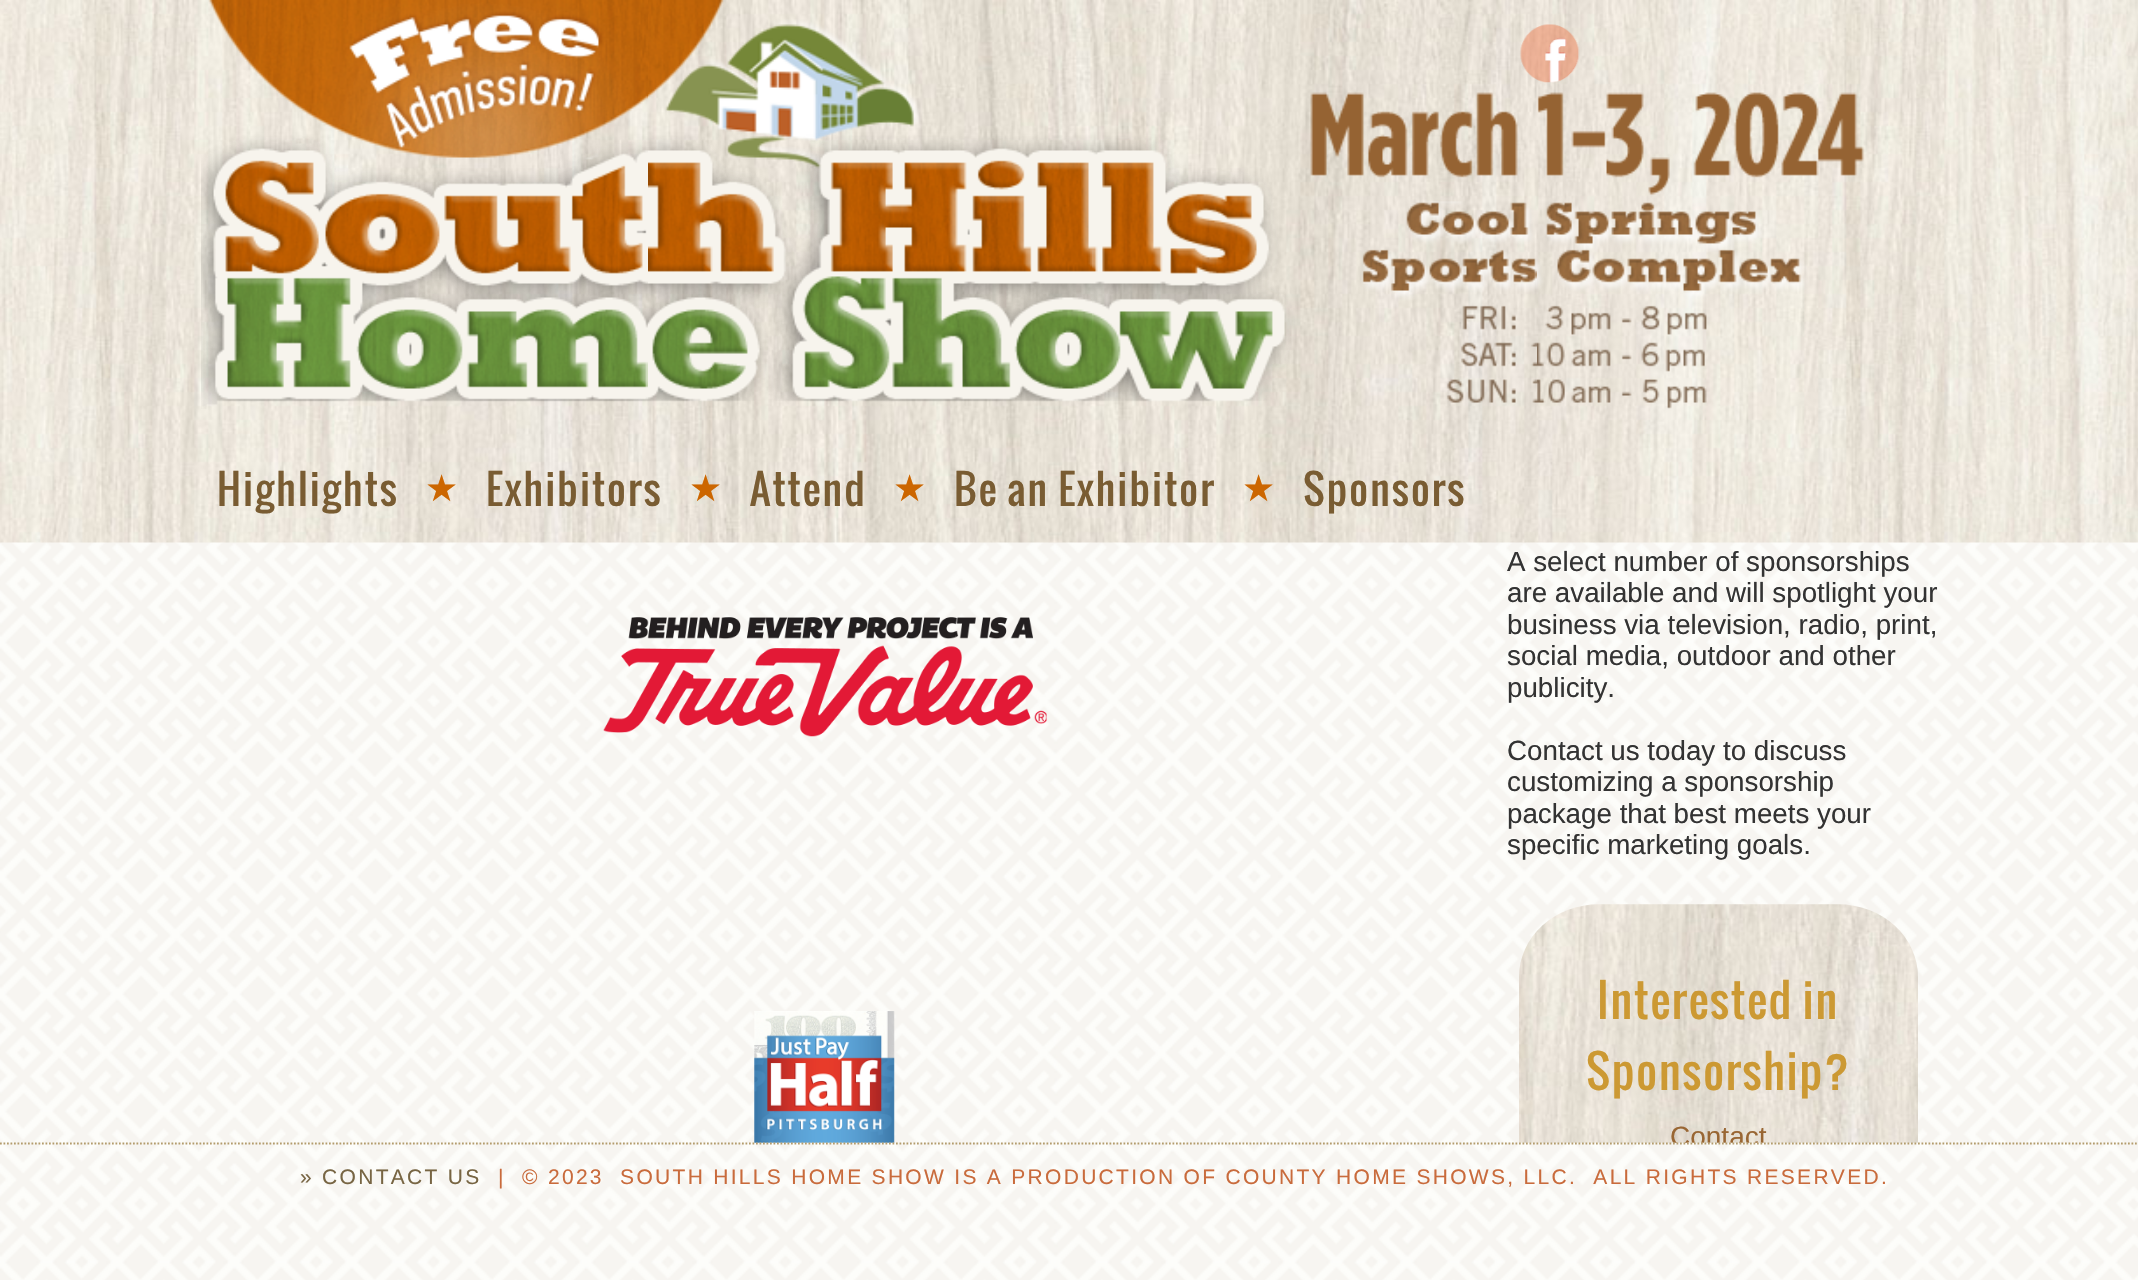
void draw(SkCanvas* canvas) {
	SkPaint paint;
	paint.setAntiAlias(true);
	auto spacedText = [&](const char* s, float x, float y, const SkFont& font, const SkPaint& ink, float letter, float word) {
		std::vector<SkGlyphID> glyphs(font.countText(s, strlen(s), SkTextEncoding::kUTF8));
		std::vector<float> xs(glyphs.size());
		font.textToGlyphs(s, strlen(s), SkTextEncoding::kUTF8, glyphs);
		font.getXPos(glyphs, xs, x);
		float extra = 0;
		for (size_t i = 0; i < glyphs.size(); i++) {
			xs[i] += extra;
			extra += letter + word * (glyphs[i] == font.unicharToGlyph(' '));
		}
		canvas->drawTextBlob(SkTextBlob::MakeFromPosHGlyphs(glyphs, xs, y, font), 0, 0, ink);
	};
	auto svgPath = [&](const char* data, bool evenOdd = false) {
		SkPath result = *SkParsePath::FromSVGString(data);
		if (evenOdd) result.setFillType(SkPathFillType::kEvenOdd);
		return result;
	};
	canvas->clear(0xffffffff);
	canvas->drawImageRect(SkImages::DeferredFromEncodedData(SkData::MakeFromFileName("img1.png")), SkRect::MakeXYWH(0, 542, 2138, 601), SkSamplingOptions());
	canvas->drawImageRect(SkImages::DeferredFromEncodedData(SkData::MakeFromFileName("img2.png")), SkRect::MakeXYWH(0, 0, 2138, 543), SkSamplingOptions());
	canvas->drawImageRect(SkImages::DeferredFromEncodedData(SkData::MakeFromFileName("img3.png")), SkRect::MakeXYWH(201, 0, 1664, 409), SkSamplingOptions());
	canvas->drawImageRect(SkImages::DeferredFromEncodedData(SkData::MakeFromFileName("img4.png")), SkRect::MakeXYWH(1520, 24, 60, 59), SkSamplingOptions());
	SkFont f1(fontMgr->matchFamilyStyle("Oswald", SkFontStyle::Normal()), 40.25);
	f1.setSubpixel(true);
	paint.setColor(0xff795c32);
	spacedText("Highlights", 217, 506, f1, paint, 2.1, 0);
	SkFont f2(fontMgr->matchFamilyStyle("DejaVu Sans", SkFontStyle::Normal()), 37);
	f2.setSubpixel(true);
	paint.setColor(0xffcc6600);
	spacedText("★", 425, 501, f2, paint, 2, 0);
	paint.setColor(0xff795c32);
	spacedText("Exhibitors", 486, 506, f1, paint, 2.1, 0);
	paint.setColor(0xffcc6600);
	spacedText("★", 689, 501, f2, paint, 2, 0);
	paint.setColor(0xff795c32);
	spacedText("Attend", 750, 506, f1, paint, 2.1, 0);
	paint.setColor(0xffcc6600);
	spacedText("★", 893, 501, f2, paint, 2, 0);
	paint.setColor(0xff795c32);
	spacedText("Be an Exhibitor", 954, 506, f1, paint, 2.1, 0);
	paint.setColor(0xffcc6600);
	spacedText("★", 1242, 501, f2, paint, 2, 0);
	paint.setColor(0xff795c32);
	spacedText("Sponsors", 1303, 506, f1, paint, 2.1, 0);
	canvas->drawImageRect(SkImages::DeferredFromEncodedData(SkData::MakeFromFileName("img5.png")), SkRect::MakeXYWH(603, 617, 444, 120), SkSamplingOptions());
	canvas->drawImageRect(SkImages::DeferredFromEncodedData(SkData::MakeFromFileName("img6.png")), SkRect::MakeXYWH(754, 1011, 141, 132), SkSamplingOptions());
	SkFont f3(fontMgr->matchFamilyStyle("Liberation Sans", SkFontStyle::Normal()), 27.75);
	f3.setSubpixel(true);
	paint.setColor(0xff333333);
	canvas->drawString("A select number of sponsorships", 1507, 571, f3, paint);
	canvas->drawString("are available and will spotlight your", 1507, 602, f3, paint);
	canvas->drawString("business via television, radio, print,", 1507, 634, f3, paint);
	canvas->drawString("social media, outdoor and other", 1507, 665, f3, paint);
	canvas->drawString("publicity.", 1507, 697, f3, paint);
	canvas->drawString("Contact us today to discuss", 1507, 760, f3, paint);
	canvas->drawString("customizing a sponsorship", 1507, 791, f3, paint);
	canvas->drawString("package that best meets your", 1507, 823, f3, paint);
	canvas->drawString("specific marketing goals.", 1507, 854, f3, paint);
	canvas->drawImageRect(SkImages::DeferredFromEncodedData(SkData::MakeFromFileName("img7.png")), SkRect::MakeXYWH(1519, 904, 399, 239), SkSamplingOptions());
	SkFont f4(fontMgr->matchFamilyStyle("Oswald", SkFontStyle::Normal()), 44.75);
	f4.setSubpixel(true);
	paint.setColor(0xffcc9933);
	spacedText("Interested in", 1597, 1019, f4, paint, 1.75, 0);
	spacedText("Sponsorship?", 1586, 1090, f4, paint, 1.75, 0);
	SkFont f5(fontMgr->matchFamilyStyle("Liberation Sans", SkFontStyle::Normal()), 28);
	f5.setSubpixel(true);
	paint.setColor(0xff996633);
	canvas->drawString("Contact", 1670, 1146, f5, paint);
	canvas->drawImageRect(SkImages::DeferredFromEncodedData(SkData::MakeFromFileName("img8.png")), SkRect::MakeXYWH(0, 1142, 2138, 138), SkSamplingOptions());
	paint.setStroke(true);
	paint.setStrokeWidth(1.8);
	paint.setColor(0xffb39c6c);
	paint.setPathEffect(SkDashPathEffect::Make({{1.75f, 1.75f}}, 0));
	canvas->drawPath(svgPath("M0 1143.5H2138.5"), paint);
	paint.setPathEffect(nullptr);
	SkFont f6(fontMgr->matchFamilyStyle("Liberation Sans", SkFontStyle::Normal()), 21);
	f6.setSubpixel(true);
	paint.setStroke(false);
	paint.setColor(0xff776543);
	spacedText("» CONTACT US", 300, 1184, f6, paint, 2.3, 0);
	paint.setColor(0xffc96b3c);
	spacedText("|  © 2023  SOUTH HILLS HOME SHOW IS A PRODUCTION OF COUNTY HOME SHOWS, LLC.  ALL RIGHTS RESERVED.", 498, 1184, f6, paint, 2.3, 0);
}
